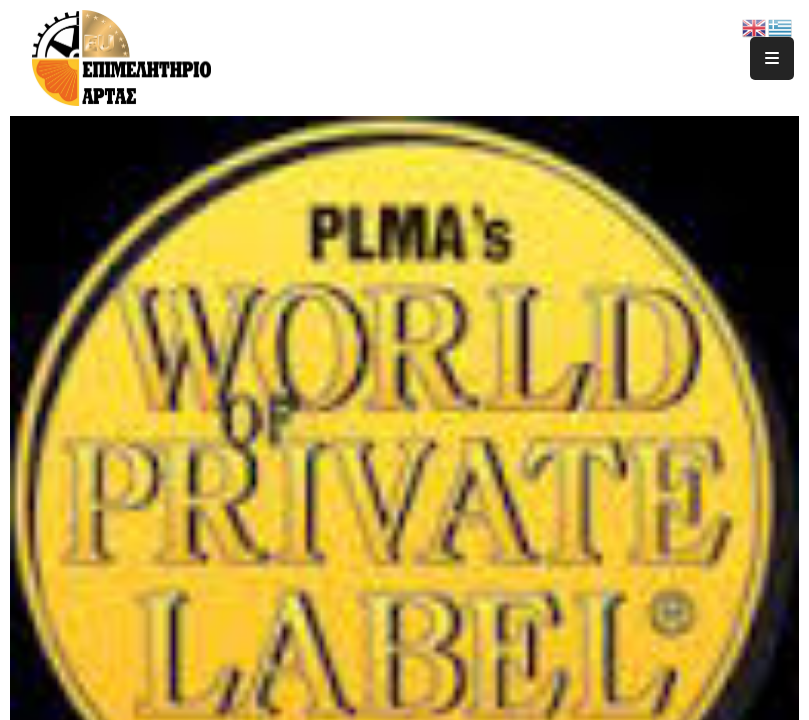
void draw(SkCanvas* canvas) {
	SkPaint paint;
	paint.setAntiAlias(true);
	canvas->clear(0xffffffff);
	canvas->drawImageRect(SkImages::DeferredFromEncodedData(SkData::MakeFromFileName("img1.png")), SkRect::MakeXYWH(32, 10, 179, 96), SkSamplingOptions());
	paint.setColor(0xff242424);
	canvas->drawRoundRect(SkRect::MakeXYWH(750, 37, 44, 43), 5, 5, paint);
	canvas->drawImageRect(SkImages::DeferredFromEncodedData(SkData::MakeFromFileName("img2.png")), SkRect::MakeXYWH(765, 52, 14, 12), SkSamplingOptions());
	canvas->drawImageRect(SkImages::DeferredFromEncodedData(SkData::MakeFromFileName("img3.png")), SkRect::MakeXYWH(10, 116, 789, 604), SkSamplingOptions());
	canvas->drawImageRect(SkImages::DeferredFromEncodedData(SkData::MakeFromFileName("img4.png")), SkRect::MakeXYWH(742, 19, 24, 19), SkSamplingOptions());
	canvas->drawImageRect(SkImages::DeferredFromEncodedData(SkData::MakeFromFileName("img5.png")), SkRect::MakeXYWH(768, 19, 24, 19), SkSamplingOptions());
}
